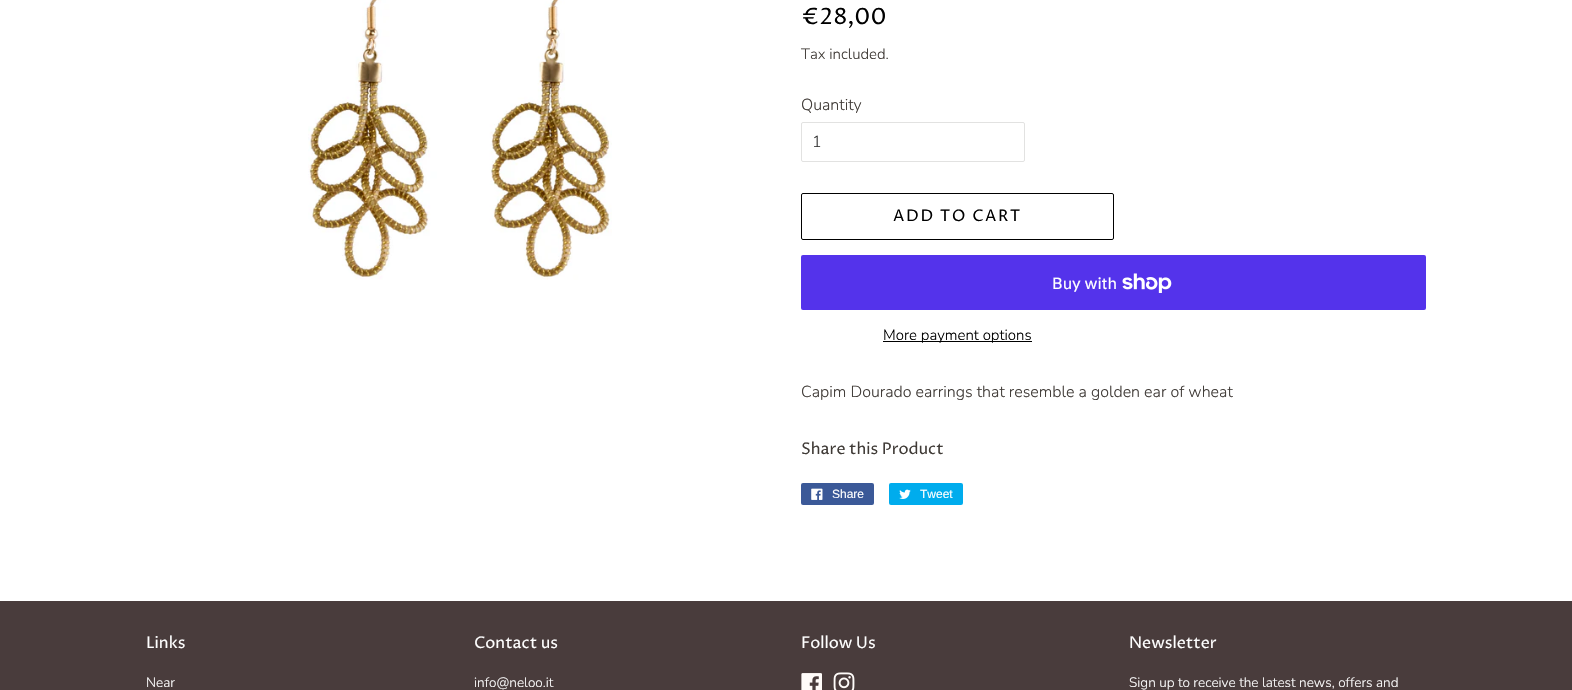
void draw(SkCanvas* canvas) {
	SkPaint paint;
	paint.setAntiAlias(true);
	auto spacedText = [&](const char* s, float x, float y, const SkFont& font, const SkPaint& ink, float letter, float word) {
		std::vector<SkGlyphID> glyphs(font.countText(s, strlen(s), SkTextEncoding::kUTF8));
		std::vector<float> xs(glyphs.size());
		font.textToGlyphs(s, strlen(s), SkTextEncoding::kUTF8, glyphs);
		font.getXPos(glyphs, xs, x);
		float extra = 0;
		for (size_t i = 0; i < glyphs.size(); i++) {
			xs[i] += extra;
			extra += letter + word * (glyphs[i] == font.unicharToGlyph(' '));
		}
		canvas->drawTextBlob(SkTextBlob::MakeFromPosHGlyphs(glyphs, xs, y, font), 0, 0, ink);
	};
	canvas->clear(0xffffffff);
	canvas->drawImageRect(SkImages::DeferredFromEncodedData(SkData::MakeFromFileName("img1.png")), SkRect::MakeXYWH(308, 0, 304, 280), SkSamplingOptions());
	SkFont f1(fontMgr->matchFamilyStyle("Proza Libre", SkFontStyle::Normal()), 22.5);
	f1.setSubpixel(true);
	paint.setColor(0xff000000);
	canvas->drawString("€28,00", 801, 24, f1, paint);
	SkFont f2(fontMgr->matchFamilyStyle("Nunito", SkFontStyle(300, SkFontStyle::kNormal_Width, SkFontStyle::kUpright_Slant)), 15);
	f2.setSubpixel(true);
	paint.setColor(0xff403b37);
	canvas->drawString("Tax included.", 801, 59, f2, paint);
	SkFont f3(fontMgr->matchFamilyStyle("Nunito", SkFontStyle(300, SkFontStyle::kNormal_Width, SkFontStyle::kUpright_Slant)), 16);
	f3.setSubpixel(true);
	canvas->drawString("Quantity", 801, 110, f3, paint);
	paint.setStroke(true);
	paint.setStrokeWidth(1);
	paint.setColor(0xffe2e2e1);
	canvas->drawRoundRect(SkRect::MakeXYWH(801.5, 122.5, 223, 39), 1.5, 1.5, paint);
	paint.setStroke(false);
	paint.setColor(0xff333333);
	canvas->drawString("1", 812, 147, f3, paint);
	paint.setStroke(true);
	paint.setColor(0xff000000);
	canvas->drawRoundRect(SkRect::MakeXYWH(801.5, 193.5, 312, 46), 1.5, 1.5, paint);
	SkFont f4(fontMgr->matchFamilyStyle("Proza Libre", SkFontStyle::Normal()), 16);
	f4.setSubpixel(true);
	paint.setStroke(false);
	spacedText("ADD TO CART", 893, 221, f4, paint, 1.6, 0);
	paint.setColor(0xff5433eb);
	canvas->drawRoundRect(SkRect::MakeXYWH(801, 255, 625, 55), 2, 2, paint);
	SkFont f5(fontMgr->matchFamilyStyle("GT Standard", SkFontStyle::Normal()), 16);
	f5.setSubpixel(true);
	paint.setColor(0xffffffff);
	canvas->drawString("Buy with", 1052, 289, f5, paint);
	canvas->drawImageRect(SkImages::DeferredFromEncodedData(SkData::MakeFromFileName("img2.png")), SkRect::MakeXYWH(1122, 273, 50, 20), SkSamplingOptions());
	paint.setColor(0xff000000);
	canvas->drawRect(SkRect::MakeXYWH(883, 341, 149, 1), paint);
	canvas->drawString("More payment options", 883, 340, f2, paint);
	paint.setColor(0xff403b37);
	canvas->drawString("Capim Dourado earrings that resemble a golden ear of wheat", 801, 397, f3, paint);
	canvas->drawString("Share this Product", 801, 454, f4, paint);
	paint.setColor(0xff3b5998);
	canvas->drawRoundRect(SkRect::MakeXYWH(801, 483, 73, 22), 2, 2, paint);
	canvas->drawImageRect(SkImages::DeferredFromEncodedData(SkData::MakeFromFileName("img3.png")), SkRect::MakeXYWH(811, 488, 12, 12), SkSamplingOptions());
	SkFont f6(fontMgr->matchFamilyStyle("Liberation Sans", SkFontStyle::Normal()), 12);
	f6.setSubpixel(true);
	paint.setColor(0xffffffff);
	canvas->drawString("Share", 832, 498, f6, paint);
	paint.setColor(0xff00aced);
	canvas->drawRoundRect(SkRect::MakeXYWH(889, 483, 74, 22), 2, 2, paint);
	canvas->drawImageRect(SkImages::DeferredFromEncodedData(SkData::MakeFromFileName("img4.png")), SkRect::MakeXYWH(899, 489, 12, 10), SkSamplingOptions());
	paint.setColor(0xffffffff);
	canvas->drawString("Tweet", 920, 498, f6, paint);
	paint.setColor(0xff493c3c);
	canvas->drawRect(SkRect::MakeXYWH(0, 601, 1572, 89), paint);
	paint.setColor(0xffffffff);
	canvas->drawString("Links", 146, 648, f4, paint);
	SkFont f7(fontMgr->matchFamilyStyle("Nunito", SkFontStyle(300, SkFontStyle::kNormal_Width, SkFontStyle::kUpright_Slant)), 13.6);
	f7.setSubpixel(true);
	canvas->drawString("Near", 146, 687, f7, paint);
	canvas->drawString("Contact us", 474, 648, f4, paint);
	canvas->drawString("info@neloo.it", 474, 687, f7, paint);
	canvas->drawString("Follow Us", 801, 648, f4, paint);
	canvas->drawImageRect(SkImages::DeferredFromEncodedData(SkData::MakeFromFileName("img5.png")), SkRect::MakeXYWH(801, 673, 21, 17), SkSamplingOptions());
	canvas->drawImageRect(SkImages::DeferredFromEncodedData(SkData::MakeFromFileName("img6.png")), SkRect::MakeXYWH(833, 672, 22, 18), SkSamplingOptions());
	canvas->drawString("Newsletter", 1129, 648, f4, paint);
	canvas->drawString("Sign up to receive the latest news, offers and", 1129, 687, f7, paint);
}
